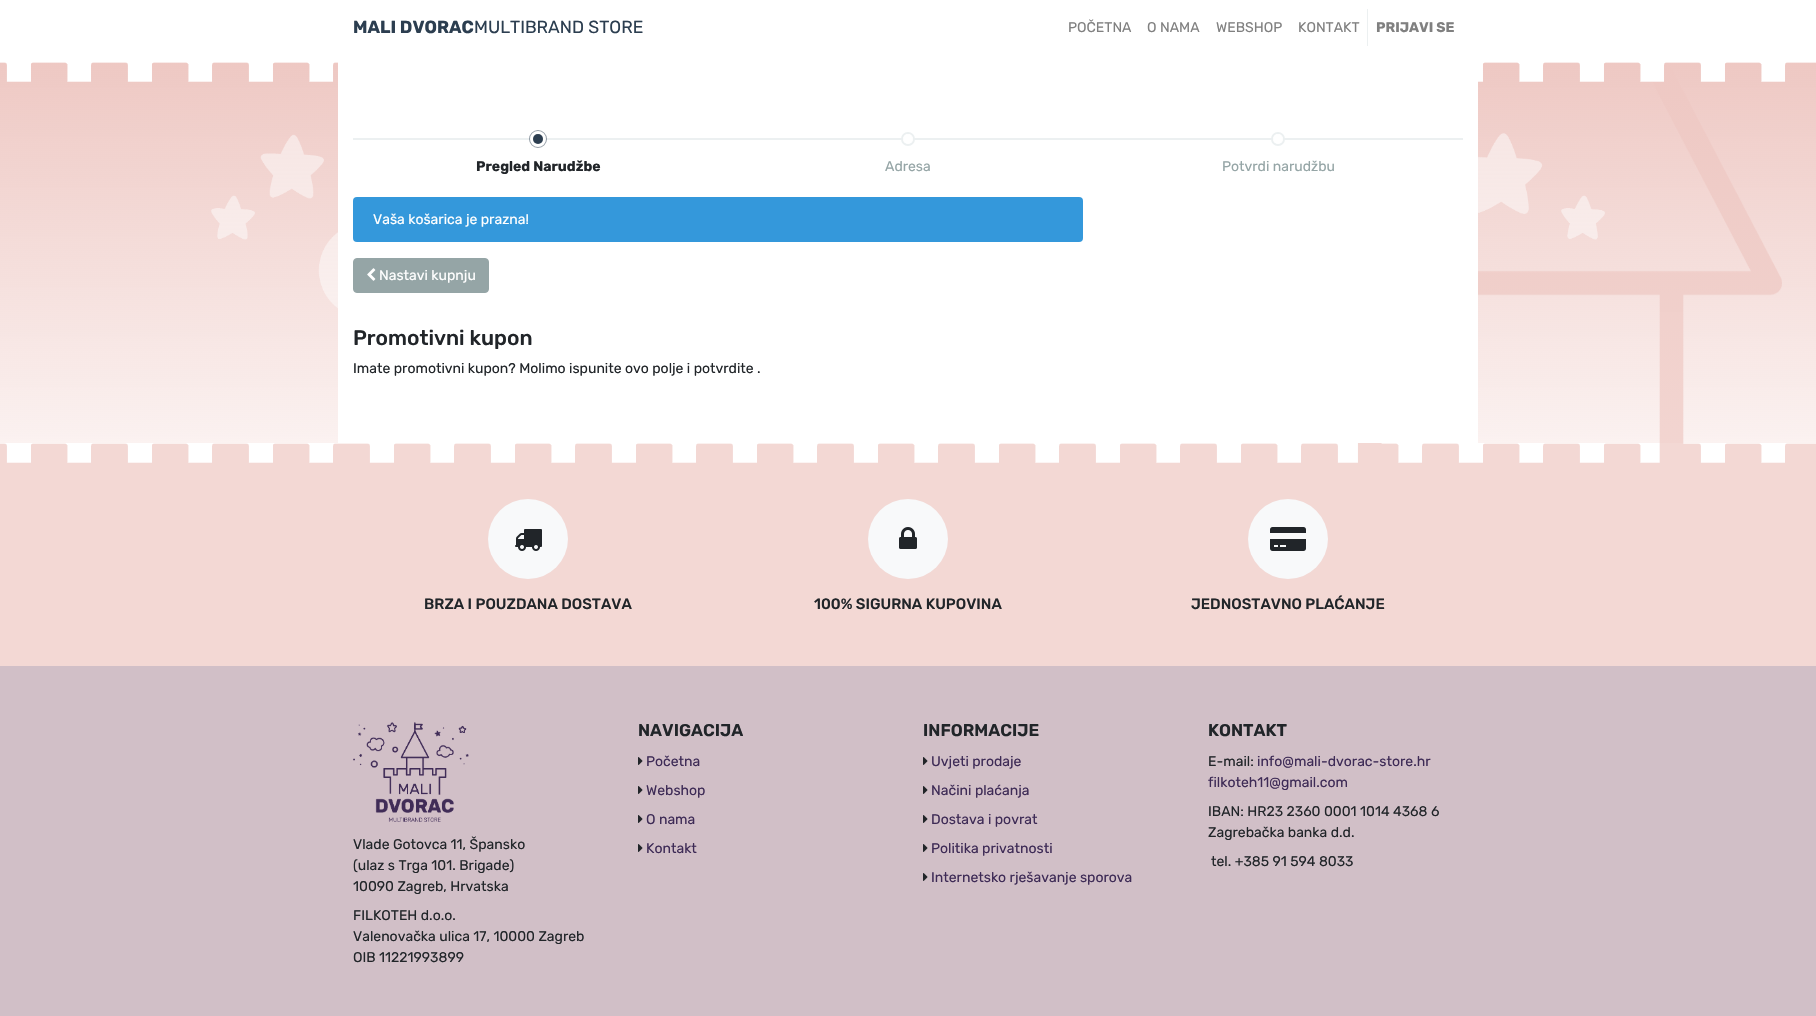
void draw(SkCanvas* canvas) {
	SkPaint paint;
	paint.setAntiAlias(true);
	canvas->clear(0xffffffff);
	canvas->save();
	canvas->clipRect(SkRect::MakeXYWH(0, 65, 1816, 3));
	paint.setColor(0x33000000);
	paint.setMaskFilter(SkMaskFilter::MakeBlur(kNormal_SkBlurStyle, 5));
	canvas->drawRect(SkRect::MakeXYWH(0, -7, 1816, 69), paint);
	paint.setMaskFilter(nullptr);
	canvas->restore();
	SkFont f1(fontMgr->matchFamilyStyle("Rubik", SkFontStyle::Bold()), 17.5);
	f1.setSubpixel(true);
	paint.setColor(0xff2c3e50);
	canvas->drawString("MALI DVORAC", 353, 33, f1, paint);
	SkFont f2(fontMgr->matchFamilyStyle("Rubik", SkFontStyle::Normal()), 17.5);
	f2.setSubpixel(true);
	canvas->drawString("MULTIBRAND STORE", 474, 33, f2, paint);
	SkFont f3(fontMgr->matchFamilyStyle("Rubik", SkFontStyle::Normal()), 14);
	f3.setSubpixel(true);
	paint.setColor(0xff808080);
	canvas->drawString("POČETNA", 1068, 32, f3, paint);
	canvas->drawString("O NAMA", 1147, 32, f3, paint);
	canvas->drawString("WEBSHOP", 1216, 32, f3, paint);
	canvas->drawString("KONTAKT", 1298, 32, f3, paint);
	paint.setColor(0xffecf0f1);
	canvas->drawRect(SkRect::MakeXYWH(1367, 9, 1, 37), paint);
	SkFont f4(fontMgr->matchFamilyStyle("Rubik", SkFontStyle::Bold()), 14);
	f4.setSubpixel(true);
	paint.setColor(0xff808080);
	canvas->drawString("PRIJAVI SE", 1376, 32, f4, paint);
	canvas->drawImageRect(SkImages::DeferredFromEncodedData(SkData::MakeFromFileName("img1.png")), SkRect::MakeXYWH(0, 62, 1816, 381), SkSamplingOptions());
	paint.setColor(0xffffffff);
	canvas->drawRect(SkRect::MakeXYWH(338, 62, 1140, 381), paint);
	paint.setColor(0xffecf0f1);
	canvas->drawRect(SkRect::MakeXYWH(353, 138, 1110, 2), paint);
	paint.setStroke(true);
	paint.setStrokeWidth(4);
	paint.setColor(0x802c3e50);
	canvas->drawCircle(538, 139, 7, paint);
	paint.setStrokeWidth(3);
	paint.setColor(0xffffffff);
	canvas->drawCircle(538, 139, 6.5, paint);
	paint.setStroke(false);
	paint.setColor(0xff2c3e50);
	canvas->drawCircle(538, 139, 5, paint);
	paint.setColor(0xff212529);
	canvas->drawString("Pregled Narudžbe", 476, 171, f4, paint);
	paint.setStroke(true);
	paint.setStrokeWidth(2);
	paint.setColor(0xffecf0f1);
	canvas->drawCircle(908, 139, 6, paint);
	paint.setStroke(false);
	paint.setColor(0xffffffff);
	canvas->drawCircle(908, 139, 5, paint);
	paint.setColor(0xff95a5a6);
	canvas->drawString("Adresa", 885, 171, f3, paint);
	paint.setStroke(true);
	paint.setColor(0xffecf0f1);
	canvas->drawCircle(1278, 139, 6, paint);
	paint.setStroke(false);
	paint.setColor(0xffffffff);
	canvas->drawCircle(1278, 139, 5, paint);
	paint.setColor(0xff95a5a6);
	canvas->drawString("Potvrdi narudžbu", 1222, 171, f3, paint);
	paint.setColor(0xff3498db);
	canvas->drawRoundRect(SkRect::MakeXYWH(353, 197, 730, 45), 4, 4, paint);
	paint.setColor(0xffffffff);
	canvas->drawString("Vaša košarica je prazna!", 373, 224, f3, paint);
	paint.setColor(0xff95a5a6);
	canvas->drawRoundRect(SkRect::MakeXYWH(353.5, 258.5, 135, 34), 3.5, 3.5, paint);
	paint.setStroke(true);
	paint.setStrokeWidth(1);
	canvas->drawRoundRect(SkRect::MakeXYWH(353.5, 258.5, 135, 34), 3.5, 3.5, paint);
	canvas->drawImageRect(SkImages::DeferredFromEncodedData(SkData::MakeFromFileName("img2.png")), SkRect::MakeXYWH(367, 268, 9, 13), SkSamplingOptions());
	paint.setStroke(false);
	paint.setColor(0xffffffff);
	canvas->drawString("Nastavi kupnju", 379, 280, f3, paint);
	SkFont f5(fontMgr->matchFamilyStyle("Rubik", SkFontStyle(500, SkFontStyle::kNormal_Width, SkFontStyle::kUpright_Slant)), 21);
	f5.setSubpixel(true);
	paint.setColor(0xff212529);
	canvas->drawString("Promotivni kupon", 353, 345, f5, paint);
	canvas->drawString("Imate promotivni kupon? Molimo ispunite ovo polje i potvrdite .", 353, 373, f3, paint);
	paint.setColor(0xfff3d8d4);
	canvas->drawRect(SkRect::MakeXYWH(0, 443, 1816, 223), paint);
	canvas->drawImageRect(SkImages::DeferredFromEncodedData(SkData::MakeFromFileName("img3.png")), SkRect::MakeXYWH(0, 443, 1816, 20), SkSamplingOptions());
	paint.setColor(0xfff8f9fa);
	canvas->drawCircle(528, 539, 40, paint);
	canvas->drawImageRect(SkImages::DeferredFromEncodedData(SkData::MakeFromFileName("img4.png")), SkRect::MakeXYWH(515, 529, 27, 22), SkSamplingOptions());
	SkFont f6(fontMgr->matchFamilyStyle("Rubik", SkFontStyle(500, SkFontStyle::kNormal_Width, SkFontStyle::kUpright_Slant)), 15);
	f6.setSubpixel(true);
	paint.setColor(0xff212529);
	canvas->drawString("BRZA I POUZDANA DOSTAVA", 424, 609, f6, paint);
	paint.setColor(0xfff8f9fa);
	canvas->drawCircle(908, 539, 40, paint);
	canvas->drawImageRect(SkImages::DeferredFromEncodedData(SkData::MakeFromFileName("img5.png")), SkRect::MakeXYWH(899, 527, 18, 22), SkSamplingOptions());
	paint.setColor(0xff212529);
	canvas->drawString("100% SIGURNA KUPOVINA", 814, 609, f6, paint);
	paint.setColor(0xfff8f9fa);
	canvas->drawCircle(1288, 539, 40, paint);
	canvas->drawImageRect(SkImages::DeferredFromEncodedData(SkData::MakeFromFileName("img6.png")), SkRect::MakeXYWH(1270, 527, 36, 24), SkSamplingOptions());
	paint.setColor(0xff212529);
	canvas->drawString("JEDNOSTAVNO PLAĆANJE", 1191, 609, f6, paint);
	paint.setColor(0xffd1bfc7);
	canvas->drawRect(SkRect::MakeXYWH(0, 666, 1816, 350), paint);
	SkFont f7(fontMgr->matchFamilyStyle("Rubik", SkFontStyle(600, SkFontStyle::kNormal_Width, SkFontStyle::kUpright_Slant)), 17);
	f7.setSubpixel(true);
	paint.setColor(0xff212529);
	canvas->drawString("NAVIGACIJA", 638, 736, f7, paint);
	canvas->drawImageRect(SkImages::DeferredFromEncodedData(SkData::MakeFromFileName("img7.png")), SkRect::MakeXYWH(638, 757, 5, 8), SkSamplingOptions());
	paint.setColor(0xff3e2b56);
	canvas->drawString("Početna", 646, 766, f3, paint);
	canvas->drawImageRect(SkImages::DeferredFromEncodedData(SkData::MakeFromFileName("img7.png")), SkRect::MakeXYWH(638, 786, 5, 8), SkSamplingOptions());
	canvas->drawString("Webshop", 646, 795, f3, paint);
	canvas->drawImageRect(SkImages::DeferredFromEncodedData(SkData::MakeFromFileName("img7.png")), SkRect::MakeXYWH(638, 815, 5, 8), SkSamplingOptions());
	canvas->drawString("O nama", 646, 824, f3, paint);
	canvas->drawImageRect(SkImages::DeferredFromEncodedData(SkData::MakeFromFileName("img7.png")), SkRect::MakeXYWH(638, 844, 5, 8), SkSamplingOptions());
	canvas->drawString("Kontakt", 646, 853, f3, paint);
	paint.setColor(0xff212529);
	canvas->drawString("INFORMACIJE", 923, 736, f7, paint);
	canvas->drawImageRect(SkImages::DeferredFromEncodedData(SkData::MakeFromFileName("img7.png")), SkRect::MakeXYWH(923, 757, 5, 8), SkSamplingOptions());
	paint.setColor(0xff3e2b56);
	canvas->drawString("Uvjeti prodaje", 931, 766, f3, paint);
	canvas->drawImageRect(SkImages::DeferredFromEncodedData(SkData::MakeFromFileName("img7.png")), SkRect::MakeXYWH(923, 786, 5, 8), SkSamplingOptions());
	canvas->drawString("Načini plaćanja", 931, 795, f3, paint);
	canvas->drawImageRect(SkImages::DeferredFromEncodedData(SkData::MakeFromFileName("img7.png")), SkRect::MakeXYWH(923, 815, 5, 8), SkSamplingOptions());
	canvas->drawString("Dostava i povrat", 931, 824, f3, paint);
	canvas->drawImageRect(SkImages::DeferredFromEncodedData(SkData::MakeFromFileName("img7.png")), SkRect::MakeXYWH(923, 844, 5, 8), SkSamplingOptions());
	canvas->drawString("Politika privatnosti", 931, 853, f3, paint);
	canvas->drawImageRect(SkImages::DeferredFromEncodedData(SkData::MakeFromFileName("img7.png")), SkRect::MakeXYWH(923, 873, 5, 8), SkSamplingOptions());
	canvas->drawString("Internetsko rješavanje sporova", 931, 882, f3, paint);
	paint.setColor(0xff212529);
	canvas->drawString("KONTAKT", 1208, 736, f7, paint);
	canvas->drawString("E-mail:", 1208, 766, f3, paint);
	paint.setColor(0xff3e2b56);
	canvas->drawString("info@mali-dvorac-store.hr", 1257, 766, f3, paint);
	canvas->drawString("filkoteh11@gmail.com", 1208, 787, f3, paint);
	paint.setColor(0xff212529);
	canvas->drawString("IBAN: HR23 2360 0001 1014 4368 6", 1208, 816, f3, paint);
	canvas->drawString("Zagrebačka banka d.d.", 1208, 837, f3, paint);
	canvas->drawString("tel. +385 91 594 8033", 1211, 866, f3, paint);
	canvas->drawImageRect(SkImages::DeferredFromEncodedData(SkData::MakeFromFileName("img8.png")), SkRect::MakeXYWH(353, 722, 116, 100), SkSamplingOptions());
	canvas->drawString("Vlade Gotovca 11, Špansko", 353, 849, f3, paint);
	canvas->drawString("(ulaz s Trga 101. Brigade)", 353, 870, f3, paint);
	canvas->drawString("10090 Zagreb, Hrvatska", 353, 891, f3, paint);
	canvas->drawString("FILKOTEH d.o.o.", 353, 920, f3, paint);
	canvas->drawString("Valenovačka ulica 17, 10000 Zagreb", 353, 941, f3, paint);
	canvas->drawString("OIB 11221993899", 353, 962, f3, paint);
}
